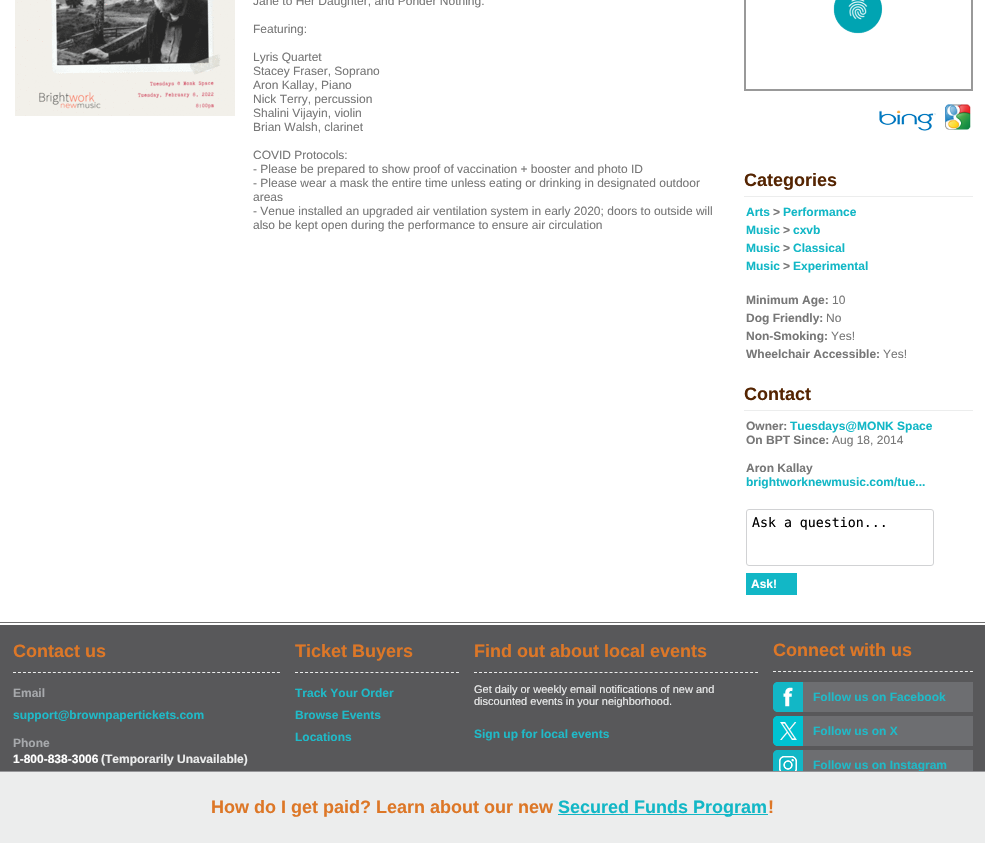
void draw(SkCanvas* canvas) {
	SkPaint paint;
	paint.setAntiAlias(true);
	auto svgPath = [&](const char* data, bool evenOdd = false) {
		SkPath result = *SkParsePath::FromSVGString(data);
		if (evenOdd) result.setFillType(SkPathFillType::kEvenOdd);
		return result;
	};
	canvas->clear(0xffffffff);
	canvas->drawImageRect(SkImages::DeferredFromEncodedData(SkData::MakeFromFileName("img1.png")), SkRect::MakeXYWH(15, 0, 220, 116), SkSamplingOptions());
	SkFont f1(fontMgr->matchFamilyStyle("Liberation Sans", SkFontStyle::Normal()), 12);
	f1.setSubpixel(true);
	paint.setColor(0xff777777);
	canvas->drawString("Jane to Her Daughter, and Ponder Nothing.", 253, 5, f1, paint);
	canvas->drawString("Featuring:", 253, 33, f1, paint);
	canvas->drawString("Lyris Quartet", 253, 61, f1, paint);
	canvas->drawString("Stacey Fraser, Soprano", 253, 75, f1, paint);
	canvas->drawString("Aron Kallay, Piano", 253, 89, f1, paint);
	canvas->drawString("Nick Terry, percussion", 253, 103, f1, paint);
	canvas->drawString("Shalini Vijayin, violin", 253, 117, f1, paint);
	canvas->drawString("Brian Walsh, clarinet", 253, 131, f1, paint);
	canvas->drawString("COVID Protocols:", 253, 159, f1, paint);
	canvas->drawString("- Please be prepared to show proof of vaccination + booster and photo ID", 253, 173, f1, paint);
	canvas->drawString("- Please wear a mask the entire time unless eating or drinking in designated outdoor", 253, 187, f1, paint);
	canvas->drawString("areas", 253, 201, f1, paint);
	canvas->drawString("- Venue installed an upgraded air ventilation system in early 2020; doors to outside will", 253, 215, f1, paint);
	canvas->drawString("also be kept open during the performance to ensure air circulation", 253, 229, f1, paint);
	paint.setStroke(true);
	paint.setStrokeWidth(2);
	paint.setColor(0xff999999);
	canvas->drawRect(SkRect::MakeXYWH(745, -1, 227, 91), paint);
	canvas->drawImageRect(SkImages::DeferredFromEncodedData(SkData::MakeFromFileName("img2.png")), SkRect::MakeXYWH(833, 0, 50, 34), SkSamplingOptions());
	canvas->drawImageRect(SkImages::DeferredFromEncodedData(SkData::MakeFromFileName("img3.png")), SkRect::MakeXYWH(879, 110, 57, 21), SkSamplingOptions());
	canvas->drawImageRect(SkImages::DeferredFromEncodedData(SkData::MakeFromFileName("img4.png")), SkRect::MakeXYWH(945, 104, 26, 26), SkSamplingOptions());
	paint.setStroke(false);
	paint.setColor(0xffeceded);
	canvas->drawRect(SkRect::MakeXYWH(744, 196, 229, 1), paint);
	SkFont f2(fontMgr->matchFamilyStyle("Liberation Sans", SkFontStyle::Bold()), 18);
	f2.setSubpixel(true);
	paint.setColor(0xff552502);
	canvas->drawString("Categories", 744, 186, f2, paint);
	SkFont f3(fontMgr->matchFamilyStyle("Liberation Sans", SkFontStyle::Bold()), 12);
	f3.setSubpixel(true);
	paint.setColor(0xff12b7c6);
	canvas->drawString("Arts", 746, 216, f3, paint);
	paint.setColor(0xff777777);
	canvas->drawString(">", 773, 216, f3, paint);
	paint.setColor(0xff12b7c6);
	canvas->drawString("Performance", 783, 216, f3, paint);
	canvas->drawString("Music", 746, 234, f3, paint);
	paint.setColor(0xff777777);
	canvas->drawString(">", 783, 234, f3, paint);
	paint.setColor(0xff12b7c6);
	canvas->drawString("cxvb", 793, 234, f3, paint);
	canvas->drawString("Music", 746, 252, f3, paint);
	paint.setColor(0xff777777);
	canvas->drawString(">", 783, 252, f3, paint);
	paint.setColor(0xff12b7c6);
	canvas->drawString("Classical", 793, 252, f3, paint);
	canvas->drawString("Music", 746, 270, f3, paint);
	paint.setColor(0xff777777);
	canvas->drawString(">", 783, 270, f3, paint);
	paint.setColor(0xff12b7c6);
	canvas->drawString("Experimental", 793, 270, f3, paint);
	paint.setColor(0xff777777);
	canvas->drawString("Minimum Age:", 746, 304, f3, paint);
	canvas->drawString("10", 832, 304, f1, paint);
	canvas->drawString("Dog Friendly:", 746, 322, f3, paint);
	canvas->drawString("No", 826, 322, f1, paint);
	canvas->drawString("Non-Smoking:", 746, 340, f3, paint);
	canvas->drawString("Yes!", 831, 340, f1, paint);
	canvas->drawString("Wheelchair Accessible:", 746, 358, f3, paint);
	canvas->drawString("Yes!", 883, 358, f1, paint);
	paint.setColor(0xffeceded);
	canvas->drawRect(SkRect::MakeXYWH(744, 410, 229, 1), paint);
	paint.setColor(0xff552502);
	canvas->drawString("Contact", 744, 400, f2, paint);
	paint.setColor(0xff777777);
	canvas->drawString("Owner:", 746, 430, f3, paint);
	paint.setColor(0xff12b7c6);
	canvas->drawString("Tuesdays@MONK Space", 790, 430, f3, paint);
	paint.setColor(0xff777777);
	canvas->drawString("On BPT Since:", 746, 444, f3, paint);
	canvas->drawString("Aug 18, 2014", 832, 444, f1, paint);
	canvas->drawString("Aron Kallay", 746, 472, f3, paint);
	paint.setColor(0xff12b7c6);
	canvas->drawString("brightworknewmusic.com/tue...", 746, 486, f3, paint);
	paint.setStroke(true);
	paint.setStrokeWidth(1);
	paint.setColor(0xffd1d2d4);
	canvas->drawRoundRect(SkRect::MakeXYWH(746.5, 509.5, 187, 56), 2.5, 2.5, paint);
	SkFont f4(fontMgr->matchFamilyStyle("DejaVu Sans Mono", SkFontStyle::Normal()), 13.25);
	f4.setSubpixel(true);
	paint.setStroke(false);
	paint.setColor(0xff000000);
	canvas->drawString("Ask a question...", 752, 527, f4, paint);
	paint.setColor(0xff12b7c6);
	canvas->drawRect(SkRect::MakeXYWH(746, 573, 51, 22), paint);
	paint.setColor(0xffffffff);
	canvas->drawString("Ask!", 751, 588, f3, paint);
	paint.setColor(0xff707070);
	canvas->drawRect(SkRect::MakeXYWH(0, 622, 985, 1), paint);
	paint.setColor(0xff58585a);
	canvas->drawRect(SkRect::MakeXYWH(0, 625, 985, 146), paint);
	paint.setStroke(true);
	paint.setColor(0xffeceded);
	paint.setPathEffect(SkDashPathEffect::Make({{3, 1.98f}}, 0));
	canvas->drawPath(svgPath("M13 672.5H280"), paint);
	paint.setPathEffect(nullptr);
	paint.setStroke(false);
	paint.setColor(0xffdd7727);
	canvas->drawString("Contact us", 13, 657, f2, paint);
	paint.setColor(0xffa7a9ac);
	canvas->drawString("Email", 13, 697, f3, paint);
	paint.setColor(0xff1fbac8);
	canvas->drawString("support@brownpapertickets.com", 13, 719, f3, paint);
	paint.setColor(0xffa7a9ac);
	canvas->drawString("Phone", 13, 747, f3, paint);
	paint.setColor(0xffffffff);
	canvas->drawString("1-800-838-3006", 13, 763, f3, paint);
	paint.setColor(0xffeceded);
	canvas->drawString("(Temporarily Unavailable)", 101, 763, f3, paint);
	paint.setStroke(true);
	paint.setPathEffect(SkDashPathEffect::Make({{3, 2.03f}}, 0));
	canvas->drawPath(svgPath("M295 672.5H459"), paint);
	paint.setPathEffect(nullptr);
	paint.setStroke(false);
	paint.setColor(0xffdd7727);
	canvas->drawString("Ticket Buyers", 295, 657, f2, paint);
	paint.setColor(0xff1fbac8);
	canvas->drawString("Track Your Order", 295, 697, f3, paint);
	canvas->drawString("Browse Events", 295, 719, f3, paint);
	canvas->drawString("Locations", 295, 741, f3, paint);
	paint.setStroke(true);
	paint.setColor(0xffeceded);
	paint.setPathEffect(SkDashPathEffect::Make({{3, 2.02f}}, 0));
	canvas->drawPath(svgPath("M474 672.5H758"), paint);
	paint.setPathEffect(nullptr);
	paint.setStroke(false);
	paint.setColor(0xffdd7727);
	canvas->drawString("Find out about local events", 474, 657, f2, paint);
	SkFont f5(fontMgr->matchFamilyStyle("Liberation Sans", SkFontStyle::Normal()), 11);
	f5.setSubpixel(true);
	paint.setColor(0xffeceded);
	canvas->drawString("Get daily or weekly email notifications of new and", 474, 693, f5, paint);
	canvas->drawString("discounted events in your neighborhood.", 474, 705, f5, paint);
	paint.setColor(0xff1fbac8);
	canvas->drawString("Sign up for local events", 474, 738, f3, paint);
	paint.setStroke(true);
	paint.setColor(0xffeceded);
	paint.setPathEffect(SkDashPathEffect::Make({{3, 2.05f}}, 0));
	canvas->drawPath(svgPath("M773 671.5H973"), paint);
	paint.setPathEffect(nullptr);
	paint.setStroke(false);
	paint.setColor(0xffdd7727);
	canvas->drawString("Connect with us", 773, 656, f2, paint);
	canvas->drawImageRect(SkImages::DeferredFromEncodedData(SkData::MakeFromFileName("img5.png")), SkRect::MakeXYWH(773, 682, 30, 30), SkSamplingOptions());
	paint.setColor(0xff6d6e71);
	canvas->drawRect(SkRect::MakeXYWH(803, 682, 170, 30), paint);
	paint.setColor(0xff1fbac8);
	canvas->drawString("Follow us on Facebook", 813, 701, f3, paint);
	canvas->drawImageRect(SkImages::DeferredFromEncodedData(SkData::MakeFromFileName("img6.png")), SkRect::MakeXYWH(773, 716, 30, 30), SkSamplingOptions());
	paint.setColor(0xff6d6e71);
	canvas->drawRect(SkRect::MakeXYWH(803, 716, 170, 30), paint);
	paint.setColor(0xff1fbac8);
	canvas->drawString("Follow us on X", 813, 735, f3, paint);
	canvas->drawImageRect(SkImages::DeferredFromEncodedData(SkData::MakeFromFileName("img7.png")), SkRect::MakeXYWH(773, 750, 30, 21), SkSamplingOptions());
	paint.setColor(0xff6d6e71);
	canvas->drawRect(SkRect::MakeXYWH(803, 750, 170, 21), paint);
	paint.setColor(0xff1fbac8);
	canvas->drawString("Follow us on Instagram", 813, 769, f3, paint);
	paint.setColor(0xffeceded);
	canvas->drawRect(SkRect::MakeXYWH(0, 772, 985, 71), paint);
	paint.setColor(0xff969699);
	canvas->drawRect(SkRect::MakeXYWH(0, 771, 985, 1), paint);
	paint.setColor(0xffdd7727);
	canvas->drawString("How do I get paid? Learn about our new", 211, 813, f2, paint);
	paint.setColor(0xff12b7c6);
	canvas->drawRect(SkRect::MakeXYWH(558, 814, 210, 1), paint);
	canvas->drawString("Secured Funds Program", 558, 813, f2, paint);
	paint.setColor(0xffdd7727);
	canvas->drawString("!", 768, 813, f2, paint);
}
